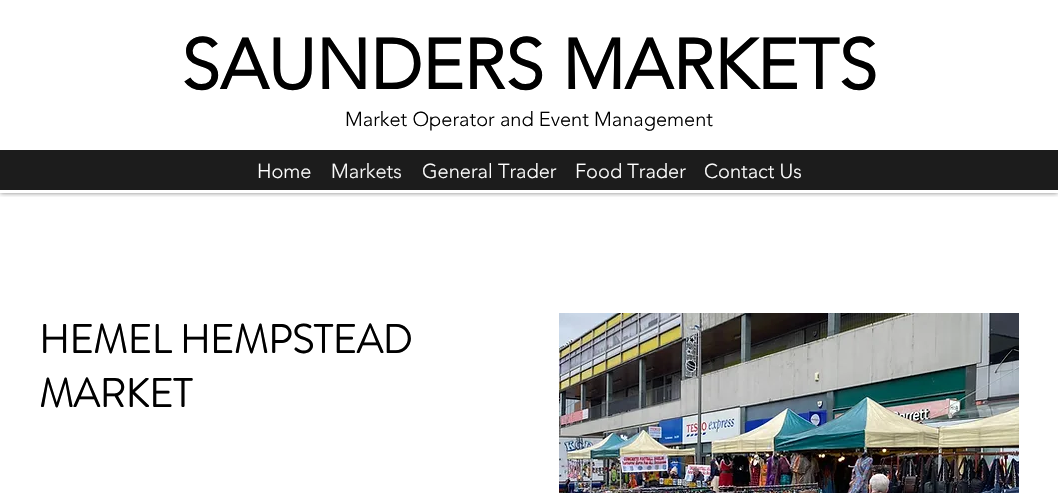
void draw(SkCanvas* canvas) {
	SkPaint paint;
	paint.setAntiAlias(true);
	canvas->clear(0xffffffff);
	canvas->save();
	canvas->clipRect(SkRect::MakeXYWH(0, 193, 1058, 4));
	paint.setColor(0x80000000);
	paint.setMaskFilter(SkMaskFilter::MakeBlur(kNormal_SkBlurStyle, 2.5));
	canvas->drawRect(SkRect::MakeXYWH(0, 0, 1058, 193), paint);
	paint.setMaskFilter(nullptr);
	canvas->restore();
	SkFont f1(fontMgr->matchFamilyStyle("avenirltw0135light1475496", SkFontStyle::Bold()), 70);
	f1.setSubpixel(true);
	paint.setColor(0xff000000);
	canvas->drawString("SAUNDERS MARKETS", 181, 89, f1, paint);
	SkFont f2(fontMgr->matchFamilyStyle("avenirltw0135light1475496", SkFontStyle(300, SkFontStyle::kNormal_Width, SkFontStyle::kUpright_Slant)), 20);
	f2.setSubpixel(true);
	canvas->drawString("Market Operator and Event Management", 345, 126, f2, paint);
	paint.setColor(0xff1c1c1c);
	canvas->drawRect(SkRect::MakeXYWH(0, 150, 1058, 40), paint);
	paint.setColor(0xffffffff);
	canvas->drawString("Home", 257, 178, f2, paint);
	paint.setColor(0xfff9f9f9);
	canvas->drawString("Markets", 331, 178, f2, paint);
	paint.setColor(0xffffffff);
	canvas->drawString("General Trader", 422, 178, f2, paint);
	canvas->drawString("Food Trader", 575, 178, f2, paint);
	canvas->drawString("Contact Us", 704, 178, f2, paint);
	SkFont f3(fontMgr->matchFamilyStyle("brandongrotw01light", SkFontStyle::Bold()), 40);
	f3.setSubpixel(true);
	paint.setColor(0xff000000);
	canvas->drawString("HEMEL HEMPSTEAD", 39, 353, f3, paint);
	canvas->drawString("MARKET", 39, 407, f3, paint);
	canvas->drawImageRect(SkImages::DeferredFromEncodedData(SkData::MakeFromFileName("img1.png")), SkRect::MakeXYWH(559, 313, 460, 180), SkSamplingOptions());
}
